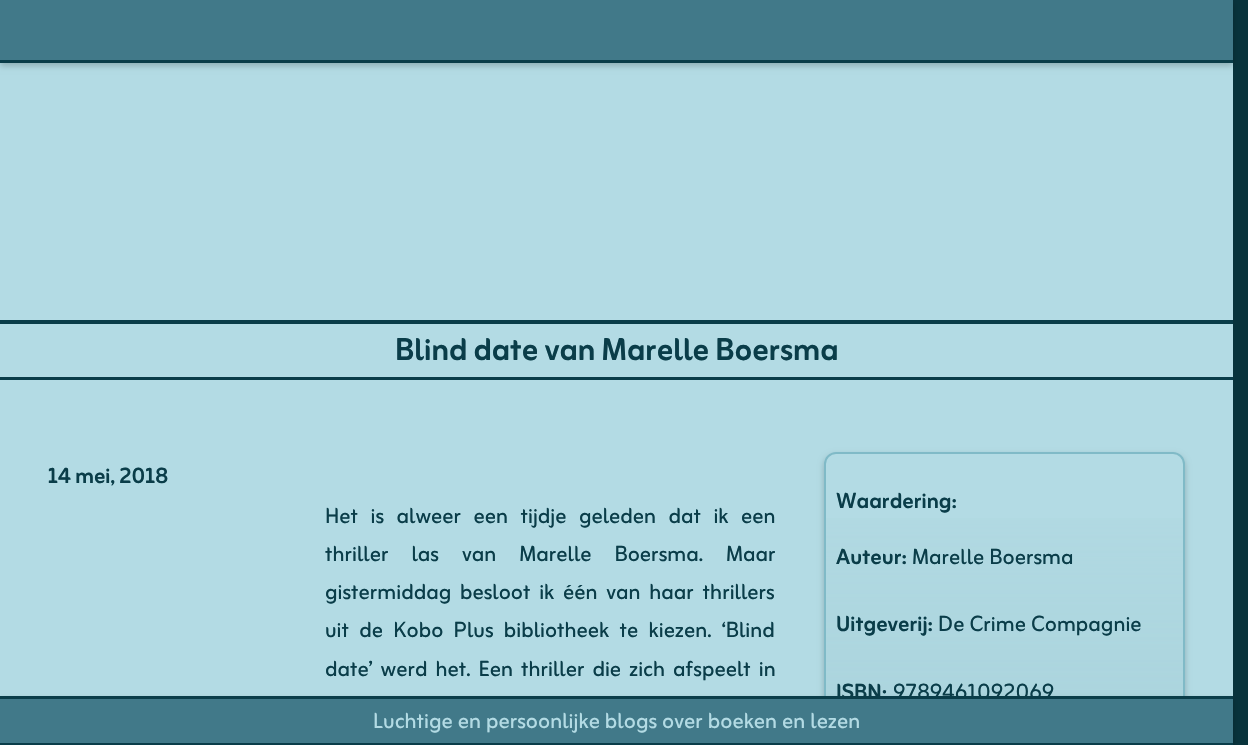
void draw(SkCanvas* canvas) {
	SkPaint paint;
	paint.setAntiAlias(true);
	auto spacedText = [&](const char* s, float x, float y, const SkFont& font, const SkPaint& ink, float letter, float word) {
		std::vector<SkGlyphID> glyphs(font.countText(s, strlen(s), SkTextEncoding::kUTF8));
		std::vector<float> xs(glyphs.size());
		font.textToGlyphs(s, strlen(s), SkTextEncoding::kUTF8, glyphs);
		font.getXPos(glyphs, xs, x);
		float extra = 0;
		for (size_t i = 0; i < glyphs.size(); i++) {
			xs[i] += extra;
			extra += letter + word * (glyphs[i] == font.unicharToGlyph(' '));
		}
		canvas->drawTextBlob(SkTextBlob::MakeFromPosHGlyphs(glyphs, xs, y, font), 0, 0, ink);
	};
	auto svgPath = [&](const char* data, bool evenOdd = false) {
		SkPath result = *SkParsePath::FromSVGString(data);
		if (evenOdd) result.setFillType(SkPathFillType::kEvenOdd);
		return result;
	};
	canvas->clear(0xff08333c);
	paint.setColor(0xffb3dbe4);
	canvas->drawRect(SkRect::MakeXYWH(0, 63, 1233, 633), paint);
	paint.setColor(0x33000000);
	paint.setMaskFilter(SkMaskFilter::MakeBlur(kNormal_SkBlurStyle, 3));
	canvas->drawRect(SkRect::MakeXYWH(0, 3, 1233, 63), paint);
	paint.setMaskFilter(nullptr);
	paint.setColor(0xff417989);
	canvas->drawRect(SkRect::MakeXYWH(0, 0, 1233, 60), paint);
	paint.setColor(0xff0a3d49);
	canvas->drawRect(SkRect::MakeXYWH(0, 60, 1233, 3), paint);
	canvas->drawRect(SkRect::MakeXYWH(0, 320, 1233, 4), paint);
	canvas->drawRect(SkRect::MakeXYWH(0, 377, 1233, 3), paint);
	SkFont f1(fontMgr->matchFamilyStyle("Zain", SkFontStyle::Bold()), 39.5);
	f1.setSubpixel(true);
	canvas->drawString("Blind date van Marelle Boersma", 395, 360, f1, paint);
	SkFont f2(fontMgr->matchFamilyStyle("Zain", SkFontStyle::Bold()), 27.25);
	f2.setSubpixel(true);
	canvas->drawString("14 mei, 2018", 48, 483, f2, paint);
	SkFont f3(fontMgr->matchFamilyStyle("Zain", SkFontStyle::Normal()), 27.25);
	f3.setSubpixel(true);
	spacedText("Het is alweer een tijdje geleden dat ik een", 325, 523, f3, paint, 0, 7.5);
	spacedText("thriller las van Marelle Boersma. Maar", 325, 561, f3, paint, 0, 18);
	spacedText("gistermiddag besloot ik één van haar thrillers", 325, 599, f3, paint, 0, 3.75);
	spacedText("uit de Kobo Plus bibliotheek te kiezen. ‘Blind", 325, 637, f3, paint, 0, 5.25);
	spacedText("date’ werd het. Een thriller die zich afspeelt in", 325, 676, f3, paint, 0, 3);
	canvas->save();
	canvas->clipPath(svgPath("M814 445H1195V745H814ZM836 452H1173C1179.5 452 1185 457.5 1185 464V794C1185 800.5 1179.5 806 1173 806H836C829.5 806 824 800.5 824 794V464C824 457.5 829.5 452 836 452Z", true), true);
	paint.setColor(0x33000000);
	paint.setMaskFilter(SkMaskFilter::MakeBlur(kNormal_SkBlurStyle, 3));
	canvas->drawRoundRect(SkRect::MakeXYWH(824, 455, 361, 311), 12, 12, paint);
	paint.setMaskFilter(nullptr);
	canvas->restore();
	{
		const SkColor colors[] = {0x00a8d2db, 0xffa8d2db};
		const float stops[] = {0, 1};
		const SkPoint ends[] = {{1004, 453}, {1004, 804}};
		paint.setShader(SkGradientShader::MakeLinear(ends, colors, stops, 2, SkTileMode::kClamp));
		paint.setAlpha(255);
	}
	canvas->drawRect(SkRect::MakeXYWH(824, 518, 361, 178), paint);
	paint.setStroke(true);
	paint.setStrokeWidth(2);
	paint.setShader(nullptr);
	paint.setColor(0xff80bac7);
	canvas->drawRoundRect(SkRect::MakeXYWH(825, 453, 359, 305), 11, 11, paint);
	paint.setStroke(false);
	paint.setColor(0xff0a3d49);
	canvas->drawString("Waardering:", 836, 508, f2, paint);
	canvas->drawString("Auteur:", 836, 564, f2, paint);
	canvas->drawString("Marelle Boersma", 912, 564, f3, paint);
	canvas->drawString("Uitgeverij:", 836, 631, f2, paint);
	canvas->drawString("De Crime Compagnie", 938, 631, f3, paint);
	canvas->drawString("ISBN:", 836, 699, f2, paint);
	canvas->drawString("9789461092069", 893, 699, f3, paint);
	paint.setColor(0x33000000);
	paint.setMaskFilter(SkMaskFilter::MakeBlur(kNormal_SkBlurStyle, 3));
	canvas->drawRect(SkRect::MakeXYWH(0, 699, 1233, 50), paint);
	paint.setMaskFilter(nullptr);
	paint.setColor(0xff417989);
	canvas->drawRect(SkRect::MakeXYWH(0, 699, 1233, 44), paint);
	paint.setColor(0xff0a3d49);
	canvas->drawRect(SkRect::MakeXYWH(0, 696, 1233, 3), paint);
	canvas->drawRect(SkRect::MakeXYWH(0, 743, 1233, 2), paint);
	paint.setColor(0xffb3dbe4);
	canvas->drawString("Luchtige en persoonlijke blogs over boeken en lezen", 373, 728, f3, paint);
}
